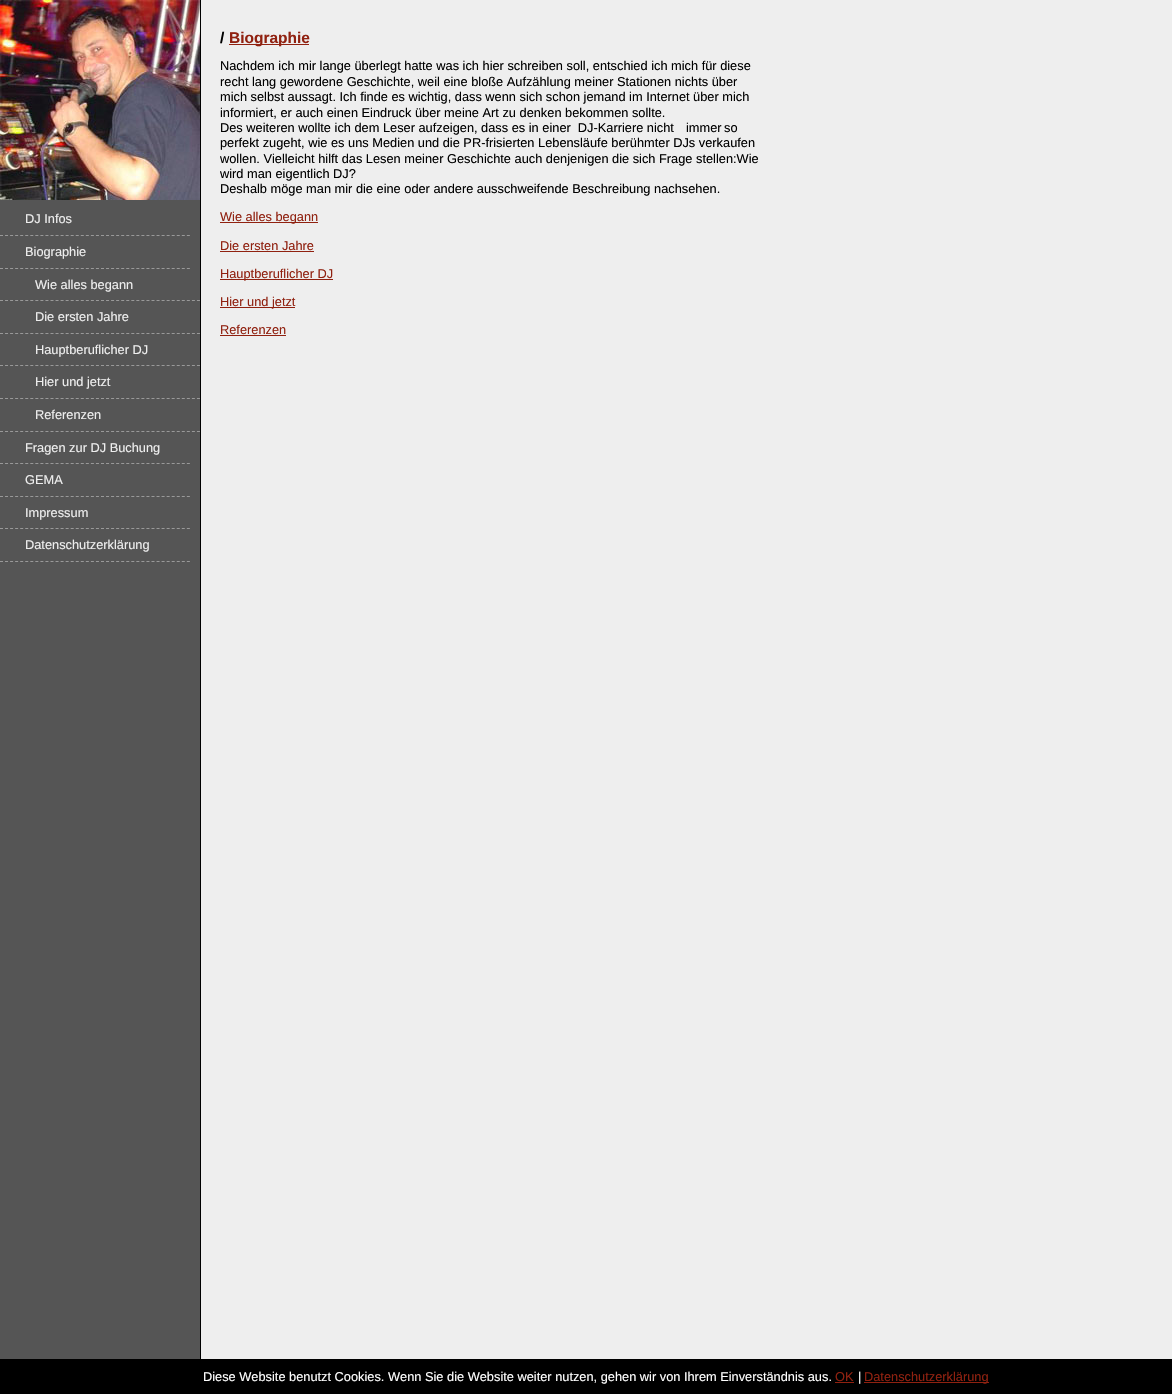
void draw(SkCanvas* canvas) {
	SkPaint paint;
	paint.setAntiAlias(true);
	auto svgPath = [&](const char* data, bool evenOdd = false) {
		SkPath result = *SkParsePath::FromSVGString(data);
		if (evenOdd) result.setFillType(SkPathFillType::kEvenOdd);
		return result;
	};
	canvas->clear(0xffeeeeee);
	paint.setColor(0xff555555);
	canvas->drawRect(SkRect::MakeXYWH(0, 200, 200, 1159), paint);
	paint.setColor(0xff000000);
	canvas->drawRect(SkRect::MakeXYWH(200, 0, 1, 1359), paint);
	canvas->drawImageRect(SkImages::DeferredFromEncodedData(SkData::MakeFromFileName("img1.png")), SkRect::MakeXYWH(0, 0, 200, 200), SkSamplingOptions());
	paint.setStroke(true);
	paint.setStrokeWidth(1);
	paint.setColor(0xff999999);
	paint.setPathEffect(SkDashPathEffect::Make({{3, 2.05f}}, 0));
	canvas->drawPath(svgPath("M0 235.5H190"), paint);
	paint.setPathEffect(nullptr);
	SkFont f1(fontMgr->matchFamilyStyle("Liberation Sans", SkFontStyle::Normal()), 12.8);
	f1.setSubpixel(true);
	paint.setStroke(false);
	paint.setColor(0xffeeeeee);
	canvas->drawString("DJ Infos", 25, 223, f1, paint);
	paint.setStroke(true);
	paint.setColor(0xff999999);
	paint.setPathEffect(SkDashPathEffect::Make({{3, 2.05f}}, 0));
	canvas->drawPath(svgPath("M0 268.5H190"), paint);
	paint.setPathEffect(nullptr);
	paint.setStroke(false);
	paint.setColor(0xffeeeeee);
	canvas->drawString("Biographie", 25, 256, f1, paint);
	paint.setStroke(true);
	paint.setColor(0xff999999);
	paint.setPathEffect(SkDashPathEffect::Make({{3, 2.05f}}, 0));
	canvas->drawPath(svgPath("M0 300.5H200"), paint);
	paint.setPathEffect(nullptr);
	paint.setStroke(false);
	paint.setColor(0xffeeeeee);
	canvas->drawString("Wie alles begann", 35, 289, f1, paint);
	paint.setStroke(true);
	paint.setColor(0xff999999);
	paint.setPathEffect(SkDashPathEffect::Make({{3, 2.05f}}, 0));
	canvas->drawPath(svgPath("M0 333.5H200"), paint);
	paint.setPathEffect(nullptr);
	paint.setStroke(false);
	paint.setColor(0xffeeeeee);
	canvas->drawString("Die ersten Jahre", 35, 321, f1, paint);
	paint.setStroke(true);
	paint.setColor(0xff999999);
	paint.setPathEffect(SkDashPathEffect::Make({{3, 2.05f}}, 0));
	canvas->drawPath(svgPath("M0 365.5H200"), paint);
	paint.setPathEffect(nullptr);
	paint.setStroke(false);
	paint.setColor(0xffeeeeee);
	canvas->drawString("Hauptberuflicher DJ", 35, 354, f1, paint);
	paint.setStroke(true);
	paint.setColor(0xff999999);
	paint.setPathEffect(SkDashPathEffect::Make({{3, 2.05f}}, 0));
	canvas->drawPath(svgPath("M0 398.5H200"), paint);
	paint.setPathEffect(nullptr);
	paint.setStroke(false);
	paint.setColor(0xffeeeeee);
	canvas->drawString("Hier und jetzt", 35, 386, f1, paint);
	paint.setStroke(true);
	paint.setColor(0xff999999);
	paint.setPathEffect(SkDashPathEffect::Make({{3, 2.05f}}, 0));
	canvas->drawPath(svgPath("M0 431.5H200"), paint);
	paint.setPathEffect(nullptr);
	paint.setStroke(false);
	paint.setColor(0xffeeeeee);
	canvas->drawString("Referenzen", 35, 419, f1, paint);
	paint.setStroke(true);
	paint.setColor(0xff999999);
	paint.setPathEffect(SkDashPathEffect::Make({{3, 2.05f}}, 0));
	canvas->drawPath(svgPath("M0 463.5H190"), paint);
	paint.setPathEffect(nullptr);
	paint.setStroke(false);
	paint.setColor(0xffeeeeee);
	canvas->drawString("Fragen zur DJ Buchung", 25, 452, f1, paint);
	paint.setStroke(true);
	paint.setColor(0xff999999);
	paint.setPathEffect(SkDashPathEffect::Make({{3, 2.05f}}, 0));
	canvas->drawPath(svgPath("M0 496.5H190"), paint);
	paint.setPathEffect(nullptr);
	paint.setStroke(false);
	paint.setColor(0xffeeeeee);
	canvas->drawString("GEMA", 25, 484, f1, paint);
	paint.setStroke(true);
	paint.setColor(0xff999999);
	paint.setPathEffect(SkDashPathEffect::Make({{3, 2.05f}}, 0));
	canvas->drawPath(svgPath("M0 528.5H190"), paint);
	paint.setPathEffect(nullptr);
	paint.setStroke(false);
	paint.setColor(0xffeeeeee);
	canvas->drawString("Impressum", 25, 517, f1, paint);
	paint.setStroke(true);
	paint.setColor(0xff999999);
	paint.setPathEffect(SkDashPathEffect::Make({{3, 2.05f}}, 0));
	canvas->drawPath(svgPath("M0 561.5H190"), paint);
	paint.setPathEffect(nullptr);
	paint.setStroke(false);
	paint.setColor(0xffeeeeee);
	canvas->drawString("Datenschutzerklärung", 25, 549, f1, paint);
	SkFont f2(fontMgr->matchFamilyStyle("Liberation Sans", SkFontStyle::Bold()), 15.5);
	f2.setSubpixel(true);
	paint.setColor(0xff000000);
	canvas->drawString("/", 220, 43, f2, paint);
	paint.setColor(0xff902110);
	canvas->drawRect(SkRect::MakeXYWH(229, 44, 80, 1), paint);
	canvas->drawString("Biographie", 229, 43, f2, paint);
	paint.setColor(0xff000000);
	canvas->drawString("Nachdem ich mir lange überlegt hatte was ich hier schreiben soll, entschied ich mich für diese", 220, 70, f1, paint);
	canvas->drawString("recht lang gewordene Geschichte, weil eine bloße Aufzählung meiner Stationen nichts über", 220, 86, f1, paint);
	canvas->drawString("mich selbst aussagt. Ich finde es wichtig, dass wenn sich schon jemand im Internet über mich", 220, 101, f1, paint);
	canvas->drawString("informiert, er auch einen Eindruck über meine Art zu denken bekommen sollte.", 220, 117, f1, paint);
	canvas->drawString("Des weiteren wollte ich dem Leser aufzeigen, dass es in einer ‑ DJ-Karriere nicht", 220, 132, f1, paint);
	canvas->drawString("immer", 686, 132, f1, paint);
	canvas->drawString("so", 724, 132, f1, paint);
	canvas->drawString("perfekt zugeht, wie es uns Medien und die PR-frisierten Lebensläufe berühmter DJs verkaufen", 220, 147, f1, paint);
	canvas->drawString("wollen. Vielleicht hilft das Lesen meiner Geschichte auch denjenigen die sich Frage stellen:Wie", 220, 163, f1, paint);
	canvas->drawString("wird man eigentlich DJ?", 220, 178, f1, paint);
	canvas->drawString("Deshalb möge man mir die eine oder andere ausschweifende Beschreibung nachsehen.", 220, 193, f1, paint);
	paint.setColor(0xff902110);
	canvas->drawRect(SkRect::MakeXYWH(220, 222, 98, 1), paint);
	canvas->drawString("Wie alles begann", 220, 221, f1, paint);
	canvas->drawString("Die ersten Jahre", 220, 250, f1, paint);
	canvas->drawRect(SkRect::MakeXYWH(220, 251, 94, 1), paint);
	canvas->drawRect(SkRect::MakeXYWH(220, 279, 113, 1), paint);
	canvas->drawString("Hauptberuflicher DJ", 220, 278, f1, paint);
	canvas->drawRect(SkRect::MakeXYWH(220, 307, 75, 1), paint);
	canvas->drawString("Hier und jetzt", 220, 306, f1, paint);
	canvas->drawString("Referenzen", 220, 334, f1, paint);
	canvas->drawRect(SkRect::MakeXYWH(220, 335, 66, 1), paint);
	paint.setColor(0xff000000);
	canvas->drawRect(SkRect::MakeXYWH(0, 1359, 1172, 35), paint);
	paint.setColor(0xffffffff);
	canvas->drawString("Diese Website benutzt Cookies. Wenn Sie die Website weiter nutzen, gehen wir von Ihrem Einverständnis aus.", 203, 1381, f1, paint);
	paint.setColor(0xff902110);
	canvas->drawString("OK", 835, 1381, f1, paint);
	canvas->drawRect(SkRect::MakeXYWH(835, 1382, 19, 1), paint);
	paint.setColor(0xffffffff);
	canvas->drawString("|", 858, 1381, f1, paint);
	paint.setColor(0xff902110);
	canvas->drawRect(SkRect::MakeXYWH(864, 1382, 125, 1), paint);
	canvas->drawString("Datenschutzerklärung", 864, 1381, f1, paint);
}
